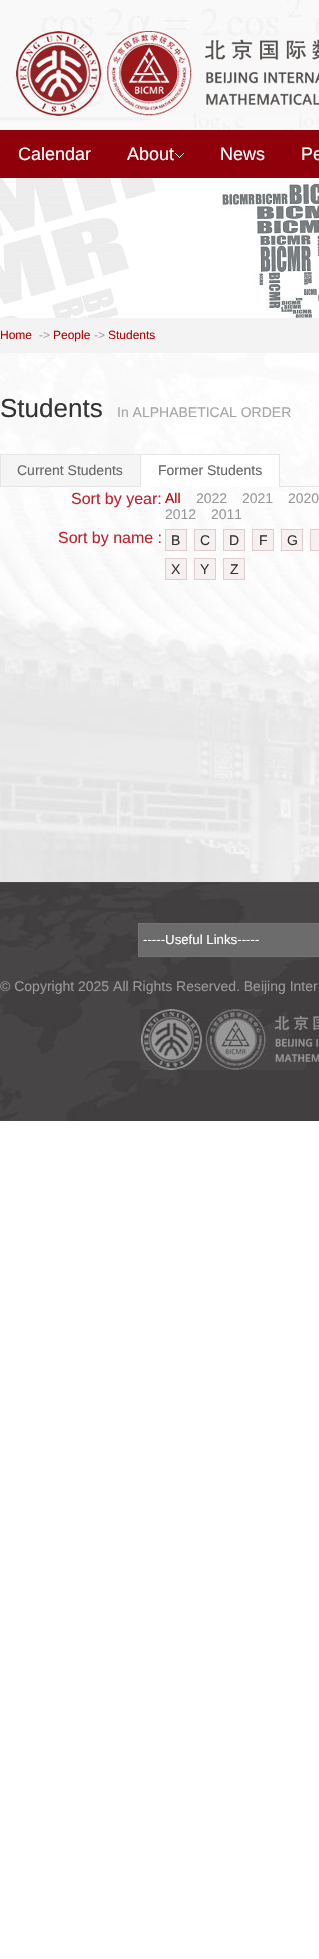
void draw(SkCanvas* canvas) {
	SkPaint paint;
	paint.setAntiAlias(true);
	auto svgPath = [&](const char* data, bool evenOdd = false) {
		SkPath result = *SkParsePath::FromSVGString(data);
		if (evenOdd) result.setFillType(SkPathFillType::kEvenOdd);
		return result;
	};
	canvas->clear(0xffffffff);
	canvas->drawImageRect(SkImages::DeferredFromEncodedData(SkData::MakeFromFileName("img1.png")), SkRect::MakeXYWH(0, 0, 319, 130), SkSamplingOptions());
	canvas->drawImageRect(SkImages::DeferredFromEncodedData(SkData::MakeFromFileName("img2.png")), SkRect::MakeXYWH(16, 31, 303, 85), SkSamplingOptions());
	paint.setColor(0xff8f000b);
	canvas->drawRect(SkRect::MakeXYWH(0, 130, 319, 48), paint);
	SkFont f1(fontMgr->matchFamilyStyle("Liberation Sans", SkFontStyle::Normal()), 18);
	f1.setSubpixel(true);
	paint.setColor(0xffffffff);
	canvas->drawString("Calendar", 18, 160, f1, paint);
	canvas->drawString("About", 127, 160, f1, paint);
	canvas->drawImageRect(SkImages::DeferredFromEncodedData(SkData::MakeFromFileName("img3.png")), SkRect::MakeXYWH(175, 153, 9, 5), SkSamplingOptions());
	canvas->drawString("News", 220, 160, f1, paint);
	canvas->drawString("Pe", 301, 160, f1, paint);
	canvas->drawImageRect(SkImages::DeferredFromEncodedData(SkData::MakeFromFileName("img4.png")), SkRect::MakeXYWH(0, 178, 319, 140), SkSamplingOptions());
	paint.setColor(0xfff3f3f3);
	canvas->drawRect(SkRect::MakeXYWH(0, 318, 319, 35), paint);
	SkFont f2(fontMgr->matchFamilyStyle("Liberation Sans", SkFontStyle::Normal()), 12);
	f2.setSubpixel(true);
	paint.setColor(0xffb90204);
	canvas->drawString("Home", 0, 339, f2, paint);
	paint.setColor(0xffa7a6a6);
	canvas->drawString("->", 39, 339, f2, paint);
	paint.setColor(0xffb90204);
	canvas->drawString("People", 53, 339, f2, paint);
	paint.setColor(0xffa7a6a6);
	canvas->drawString("->", 94, 339, f2, paint);
	paint.setColor(0xffb90204);
	canvas->drawString("Students", 108, 339, f2, paint);
	canvas->drawImageRect(SkImages::DeferredFromEncodedData(SkData::MakeFromFileName("img5.png")), SkRect::MakeXYWH(0, 353, 319, 529), SkSamplingOptions());
	SkFont f3(fontMgr->matchFamilyStyle("Liberation Sans", SkFontStyle::Normal()), 26);
	f3.setSubpixel(true);
	paint.setColor(0xff333333);
	canvas->drawString("Students", 0, 417, f3, paint);
	SkFont f4(fontMgr->matchFamilyStyle("Liberation Sans", SkFontStyle::Normal()), 14);
	f4.setSubpixel(true);
	paint.setColor(0xffa7a6a6);
	canvas->drawString("In ALPHABETICAL ORDER", 117, 417, f4, paint);
	paint.setColor(0xffe5e5e5);
	canvas->drawRect(SkRect::MakeXYWH(0, 454, 280, 1), paint);
	canvas->drawRect(SkRect::MakeXYWH(279, 486, 40, 1), paint);
	canvas->drawRect(SkRect::MakeXYWH(279, 454, 1, 33), paint);
	canvas->drawRect(SkRect::MakeXYWH(0, 454, 1, 33), paint);
	paint.setColor(0xfff5f5f5);
	canvas->drawRect(SkRect::MakeXYWH(1, 455, 139, 31), paint);
	paint.setColor(0xffe5e5e5);
	canvas->drawRect(SkRect::MakeXYWH(1, 486, 139, 1), paint);
	paint.setColor(0xff666666);
	canvas->drawString("Current Students", 17, 475, f4, paint);
	paint.setColor(0xffffffff);
	canvas->drawRect(SkRect::MakeXYWH(140, 455, 139, 32), paint);
	paint.setColor(0xffe5e5e5);
	canvas->drawPath(svgPath("M140 487V455H141V486Z"), paint);
	paint.setColor(0xff666666);
	canvas->drawString("Former Students", 158, 475, f4, paint);
	SkFont f5(fontMgr->matchFamilyStyle("Liberation Sans", SkFontStyle::Normal()), 16);
	f5.setSubpixel(true);
	paint.setColor(0xffbe222e);
	canvas->drawString("Sort by year:", 71, 504, f5, paint);
	paint.setColor(0xffb90204);
	canvas->drawString("All", 165, 503, f4, paint);
	paint.setColor(0xff999999);
	canvas->drawString("2022", 196, 503, f4, paint);
	canvas->drawString("2021", 242, 503, f4, paint);
	canvas->drawString("2020", 288, 503, f4, paint);
	canvas->drawString("2012", 165, 519, f4, paint);
	canvas->drawString("2011", 211, 519, f4, paint);
	paint.setColor(0xffbe222e);
	canvas->drawString("Sort by name :", 58, 543, f5, paint);
	paint.setColor(0xfff6f0f1);
	canvas->drawRect(SkRect::MakeXYWH(165.5, 529.5, 21, 21), paint);
	paint.setStroke(true);
	paint.setStrokeWidth(1);
	paint.setColor(0xffe0cdce);
	canvas->drawRect(SkRect::MakeXYWH(165.5, 529.5, 21, 21), paint);
	paint.setStroke(false);
	paint.setColor(0xff333333);
	canvas->drawString("B", 171, 545, f4, paint);
	paint.setColor(0xfff6f0f1);
	canvas->drawRect(SkRect::MakeXYWH(194.5, 529.5, 21, 21), paint);
	paint.setStroke(true);
	paint.setColor(0xffe0cdce);
	canvas->drawRect(SkRect::MakeXYWH(194.5, 529.5, 21, 21), paint);
	paint.setStroke(false);
	paint.setColor(0xff333333);
	canvas->drawString("C", 200, 545, f4, paint);
	paint.setColor(0xfff6f0f1);
	canvas->drawRect(SkRect::MakeXYWH(223.5, 529.5, 21, 21), paint);
	paint.setStroke(true);
	paint.setColor(0xffe0cdce);
	canvas->drawRect(SkRect::MakeXYWH(223.5, 529.5, 21, 21), paint);
	paint.setStroke(false);
	paint.setColor(0xff333333);
	canvas->drawString("D", 229, 545, f4, paint);
	paint.setColor(0xfff6f0f1);
	canvas->drawRect(SkRect::MakeXYWH(252.5, 529.5, 21, 21), paint);
	paint.setStroke(true);
	paint.setColor(0xffe0cdce);
	canvas->drawRect(SkRect::MakeXYWH(252.5, 529.5, 21, 21), paint);
	paint.setStroke(false);
	paint.setColor(0xff333333);
	canvas->drawString("F", 259, 545, f4, paint);
	paint.setColor(0xfff6f0f1);
	canvas->drawRect(SkRect::MakeXYWH(281.5, 529.5, 21, 21), paint);
	paint.setStroke(true);
	paint.setColor(0xffe0cdce);
	canvas->drawRect(SkRect::MakeXYWH(281.5, 529.5, 21, 21), paint);
	paint.setStroke(false);
	paint.setColor(0xff333333);
	canvas->drawString("G", 287, 545, f4, paint);
	paint.setColor(0xfff6f0f1);
	canvas->drawRect(SkRect::MakeXYWH(310.5, 529.5, 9, 21), paint);
	paint.setStroke(true);
	paint.setColor(0xffe0cdce);
	canvas->drawRect(SkRect::MakeXYWH(310.5, 529.5, 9, 21), paint);
	paint.setStroke(false);
	paint.setColor(0xfff6f0f1);
	canvas->drawRect(SkRect::MakeXYWH(165.5, 558.5, 21, 21), paint);
	paint.setStroke(true);
	paint.setColor(0xffe0cdce);
	canvas->drawRect(SkRect::MakeXYWH(165.5, 558.5, 21, 21), paint);
	paint.setStroke(false);
	paint.setColor(0xff333333);
	canvas->drawString("X", 171, 574, f4, paint);
	paint.setColor(0xfff6f0f1);
	canvas->drawRect(SkRect::MakeXYWH(194.5, 558.5, 21, 21), paint);
	paint.setStroke(true);
	paint.setColor(0xffe0cdce);
	canvas->drawRect(SkRect::MakeXYWH(194.5, 558.5, 21, 21), paint);
	paint.setStroke(false);
	paint.setColor(0xff333333);
	canvas->drawString("Y", 200, 574, f4, paint);
	paint.setColor(0xfff6f0f1);
	canvas->drawRect(SkRect::MakeXYWH(223.5, 558.5, 21, 21), paint);
	paint.setStroke(true);
	paint.setColor(0xffe0cdce);
	canvas->drawRect(SkRect::MakeXYWH(223.5, 558.5, 21, 21), paint);
	paint.setStroke(false);
	paint.setColor(0xff333333);
	canvas->drawString("Z", 230, 574, f4, paint);
	canvas->drawImageRect(SkImages::DeferredFromEncodedData(SkData::MakeFromFileName("img6.png")), SkRect::MakeXYWH(0, 882, 319, 239), SkSamplingOptions());
	paint.setColor(0xff6c6c6c);
	canvas->drawRect(SkRect::MakeXYWH(138.5, 923.5, 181, 33), paint);
	paint.setStroke(true);
	paint.setColor(0xff757575);
	canvas->drawRect(SkRect::MakeXYWH(138.5, 923.5, 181, 33), paint);
	SkFont f6(fontMgr->matchFamilyStyle("Liberation Sans", SkFontStyle::Normal()), 13.25);
	f6.setSubpixel(true);
	paint.setStroke(false);
	paint.setColor(0xffffffff);
	canvas->drawString("-----Useful Links-----", 143, 944, f6, paint);
	paint.setColor(0xff999999);
	canvas->drawString("© Copyright 2025 All Rights Reserved. Beijing Inter", 0, 991, f4, paint);
	canvas->drawImageRect(SkImages::DeferredFromEncodedData(SkData::MakeFromFileName("img7.png")), SkRect::MakeXYWH(140, 1009, 179, 61), SkSamplingOptions());
}
